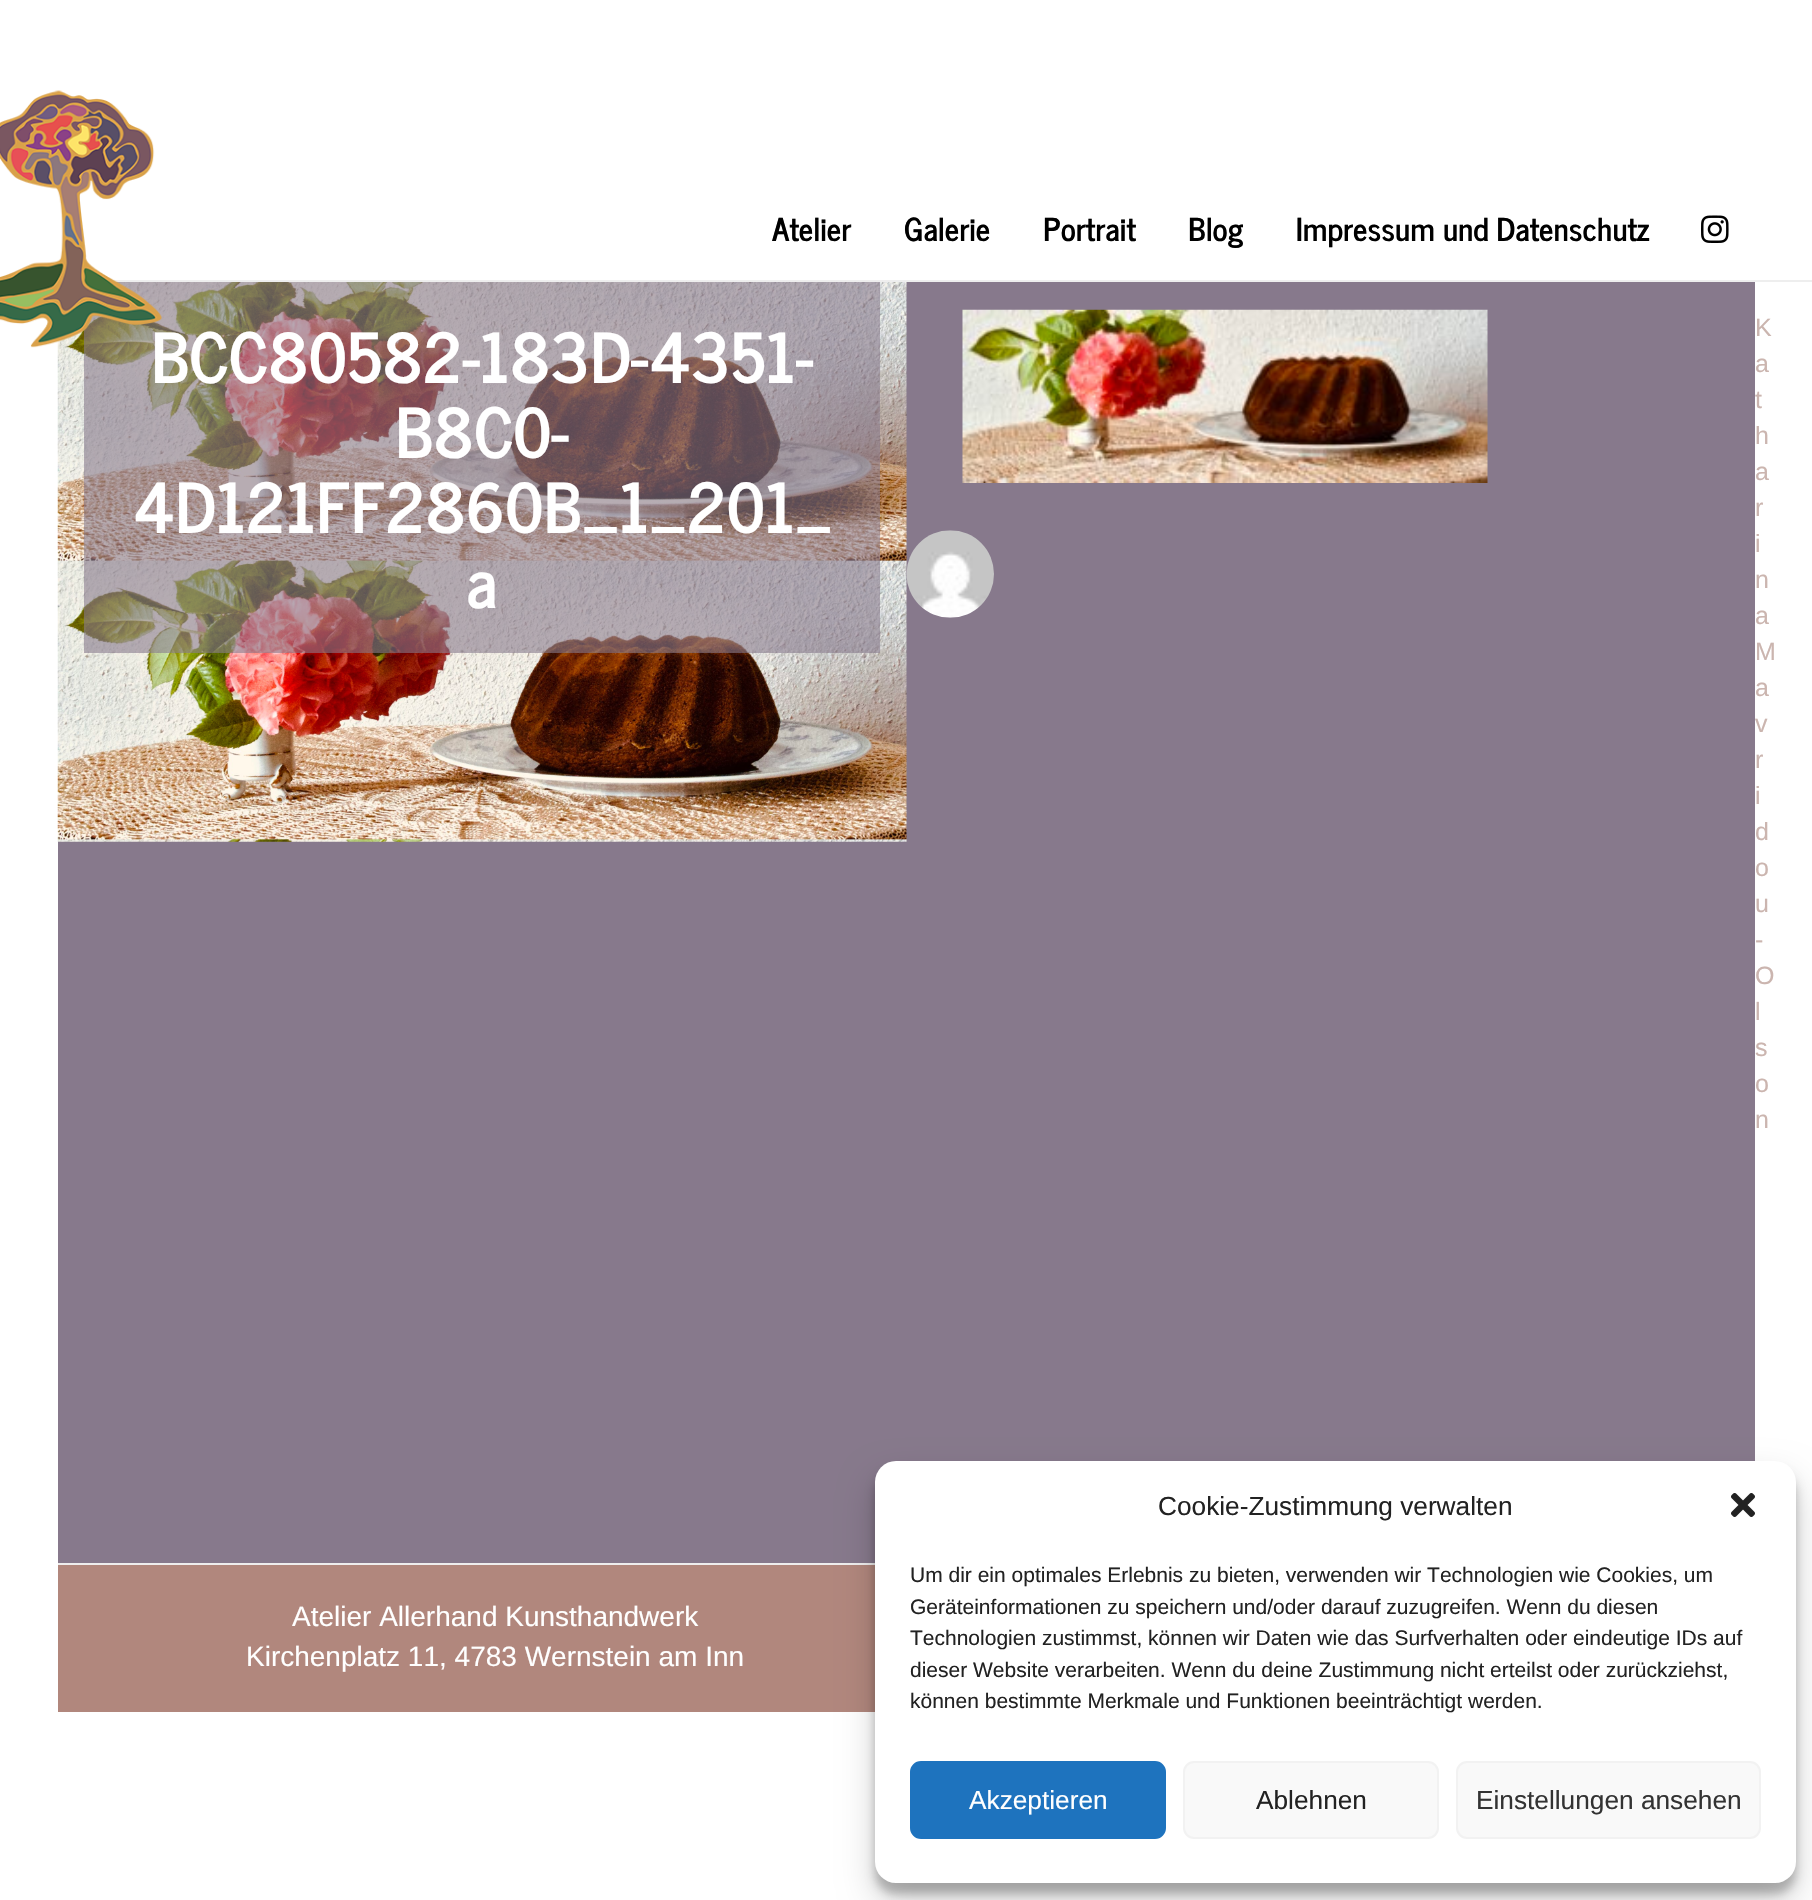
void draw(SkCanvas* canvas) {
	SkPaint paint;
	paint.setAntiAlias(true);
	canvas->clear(0xffffffff);
	paint.setColor(0xffeeeeee);
	canvas->drawRect(SkRect::MakeXYWH(112, 280, 1700, 2), paint);
	paint.setColor(0xff87798c);
	canvas->drawRect(SkRect::MakeXYWH(58, 282, 1697, 1281), paint);
	canvas->drawImageRect(SkImages::DeferredFromEncodedData(SkData::MakeFromFileName("img5.png")), SkRect::MakeXYWH(906, 530, 88, 88), SkSamplingOptions());
	canvas->drawImageRect(SkImages::DeferredFromEncodedData(SkData::MakeFromFileName("img3.png")), SkRect::MakeXYWH(57, 282, 850, 560), SkSamplingOptions());
	paint.setColor(0x9987798c);
	canvas->drawRect(SkRect::MakeXYWH(84, 282, 796, 371), paint);
	SkFont f1(fontMgr->matchFamilyStyle("News Cycle", SkFontStyle::Bold()), 68.25);
	f1.setSubpixel(true);
	paint.setColor(0xffffffff);
	canvas->drawString("BCC80582-183D-4351-", 151, 383, f1, paint);
	canvas->drawImageRect(SkImages::DeferredFromEncodedData(SkData::MakeFromFileName("img1.png")), SkRect::MakeXYWH(0, 90, 162, 258), SkSamplingOptions());
	SkFont f2(fontMgr->matchFamilyStyle("News Cycle", SkFontStyle::Bold()), 31.5);
	f2.setSubpixel(true);
	paint.setColor(0xff000000);
	canvas->drawString("Atelier", 772, 241, f2, paint);
	canvas->drawString("Galerie", 904, 241, f2, paint);
	canvas->drawString("Portrait", 1043, 241, f2, paint);
	canvas->drawString("Blog", 1188, 241, f2, paint);
	canvas->drawString("Impressum und Datenschutz", 1296, 241, f2, paint);
	canvas->drawImageRect(SkImages::DeferredFromEncodedData(SkData::MakeFromFileName("img2.png")), SkRect::MakeXYWH(1701, 215, 28, 28), SkSamplingOptions());
	paint.setColor(0xffffffff);
	canvas->drawString("B8C0-", 395, 458, f1, paint);
	canvas->drawString("4D121FF2860B_1_201_", 132, 533, f1, paint);
	canvas->drawString("a", 466, 608, f1, paint);
	canvas->drawImageRect(SkImages::DeferredFromEncodedData(SkData::MakeFromFileName("img4.png")), SkRect::MakeXYWH(962, 309, 526, 174), SkSamplingOptions());
	SkFont f3(fontMgr->matchFamilyStyle("Liberation Sans", SkFontStyle::Normal()), 25);
	f3.setSubpixel(true);
	paint.setColor(0xffcbb5af);
	canvas->drawString("K", 1755, 336, f3, paint);
	canvas->drawString("a", 1755, 372, f3, paint);
	canvas->drawString("t", 1755, 408, f3, paint);
	canvas->drawString("h", 1755, 444, f3, paint);
	canvas->drawString("a", 1755, 480, f3, paint);
	canvas->drawString("r", 1755, 516, f3, paint);
	canvas->drawString("i", 1755, 552, f3, paint);
	canvas->drawString("n", 1755, 588, f3, paint);
	canvas->drawString("a", 1755, 624, f3, paint);
	canvas->drawString("M", 1755, 660, f3, paint);
	canvas->drawString("a", 1755, 696, f3, paint);
	canvas->drawString("v", 1755, 732, f3, paint);
	canvas->drawString("r", 1755, 768, f3, paint);
	canvas->drawString("i", 1755, 804, f3, paint);
	canvas->drawString("d", 1755, 840, f3, paint);
	canvas->drawString("o", 1755, 876, f3, paint);
	canvas->drawString("u", 1755, 912, f3, paint);
	canvas->drawString("-", 1755, 948, f3, paint);
	canvas->drawString("O", 1755, 984, f3, paint);
	canvas->drawString("l", 1755, 1020, f3, paint);
	canvas->drawString("s", 1755, 1056, f3, paint);
	canvas->drawString("o", 1755, 1092, f3, paint);
	canvas->drawString("n", 1755, 1128, f3, paint);
	paint.setColor(0xffb1877d);
	canvas->drawRect(SkRect::MakeXYWH(58, 1565, 817, 147), paint);
	paint.setColor(0xffeeeeee);
	canvas->drawRect(SkRect::MakeXYWH(58, 1563, 817, 2), paint);
	SkFont f4(fontMgr->matchFamilyStyle("Liberation Sans", SkFontStyle::Normal()), 28);
	f4.setSubpixel(true);
	paint.setColor(0xffffffff);
	canvas->drawString("Atelier Allerhand Kunsthandwerk", 292, 1626, f4, paint);
	canvas->drawString("Kirchenplatz 11, 4783 Wernstein am Inn", 246, 1666, f4, paint);
	paint.setColor(0x3b000000);
	paint.setMaskFilter(SkMaskFilter::MakeBlur(kNormal_SkBlurStyle, 5));
	canvas->drawRoundRect(SkRect::MakeXYWH(875, 1472, 921, 422), 21, 21, paint);
	paint.setMaskFilter(nullptr);
	paint.setColor(0x30000000);
	paint.setMaskFilter(SkMaskFilter::MakeBlur(kNormal_SkBlurStyle, 17.5));
	canvas->drawRoundRect(SkRect::MakeXYWH(875, 1479, 921, 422), 21, 21, paint);
	paint.setMaskFilter(nullptr);
	paint.setColor(0xffffffff);
	canvas->drawRoundRect(SkRect::MakeXYWH(875, 1461, 921, 422), 21, 21, paint);
	SkFont f5(fontMgr->matchFamilyStyle("Liberation Sans", SkFontStyle::Normal()), 26.25);
	f5.setSubpixel(true);
	paint.setColor(0xff222222);
	canvas->drawString("Cookie-Zustimmung verwalten", 1158, 1515, f5, paint);
	canvas->drawImageRect(SkImages::DeferredFromEncodedData(SkData::MakeFromFileName("img6.png")), SkRect::MakeXYWH(1731, 1493, 24, 24), SkSamplingOptions());
	SkFont f6(fontMgr->matchFamilyStyle("Liberation Sans", SkFontStyle::Normal()), 21);
	f6.setSubpixel(true);
	canvas->drawString("Um dir ein optimales Erlebnis zu bieten, verwenden wir Technologien wie Cookies, um", 910, 1582, f6, paint);
	canvas->drawString("Geräteinformationen zu speichern und/oder darauf zuzugreifen. Wenn du diesen", 910, 1614, f6, paint);
	canvas->drawString("Technologien zustimmst, können wir Daten wie das Surfverhalten oder eindeutige IDs auf", 910, 1645, f6, paint);
	canvas->drawString("dieser Website verarbeiten. Wenn du deine Zustimmung nicht erteilst oder zurückziehst,", 910, 1677, f6, paint);
	canvas->drawString("können bestimmte Merkmale und Funktionen beeinträchtigt werden.", 910, 1708, f6, paint);
	paint.setColor(0xff1e73be);
	canvas->drawRoundRect(SkRect::MakeXYWH(911, 1762, 254, 76), 10, 10, paint);
	paint.setStroke(true);
	paint.setStrokeWidth(2);
	canvas->drawRoundRect(SkRect::MakeXYWH(911, 1762, 254, 76), 10, 10, paint);
	paint.setStroke(false);
	paint.setColor(0xffffffff);
	canvas->drawString("Akzeptieren", 969, 1809, f5, paint);
	paint.setColor(0xfff9f9f9);
	canvas->drawRoundRect(SkRect::MakeXYWH(1184, 1762, 254, 76), 10, 10, paint);
	paint.setStroke(true);
	paint.setColor(0xfff2f2f2);
	canvas->drawRoundRect(SkRect::MakeXYWH(1184, 1762, 254, 76), 10, 10, paint);
	paint.setStroke(false);
	paint.setColor(0xff222222);
	canvas->drawString("Ablehnen", 1256, 1809, f5, paint);
	paint.setColor(0xfff9f9f9);
	canvas->drawRoundRect(SkRect::MakeXYWH(1457, 1762, 303, 76), 10, 10, paint);
	paint.setStroke(true);
	paint.setColor(0xfff2f2f2);
	canvas->drawRoundRect(SkRect::MakeXYWH(1457, 1762, 303, 76), 10, 10, paint);
	paint.setStroke(false);
	paint.setColor(0xff333333);
	canvas->drawString("Einstellungen ansehen", 1476, 1809, f5, paint);
}
